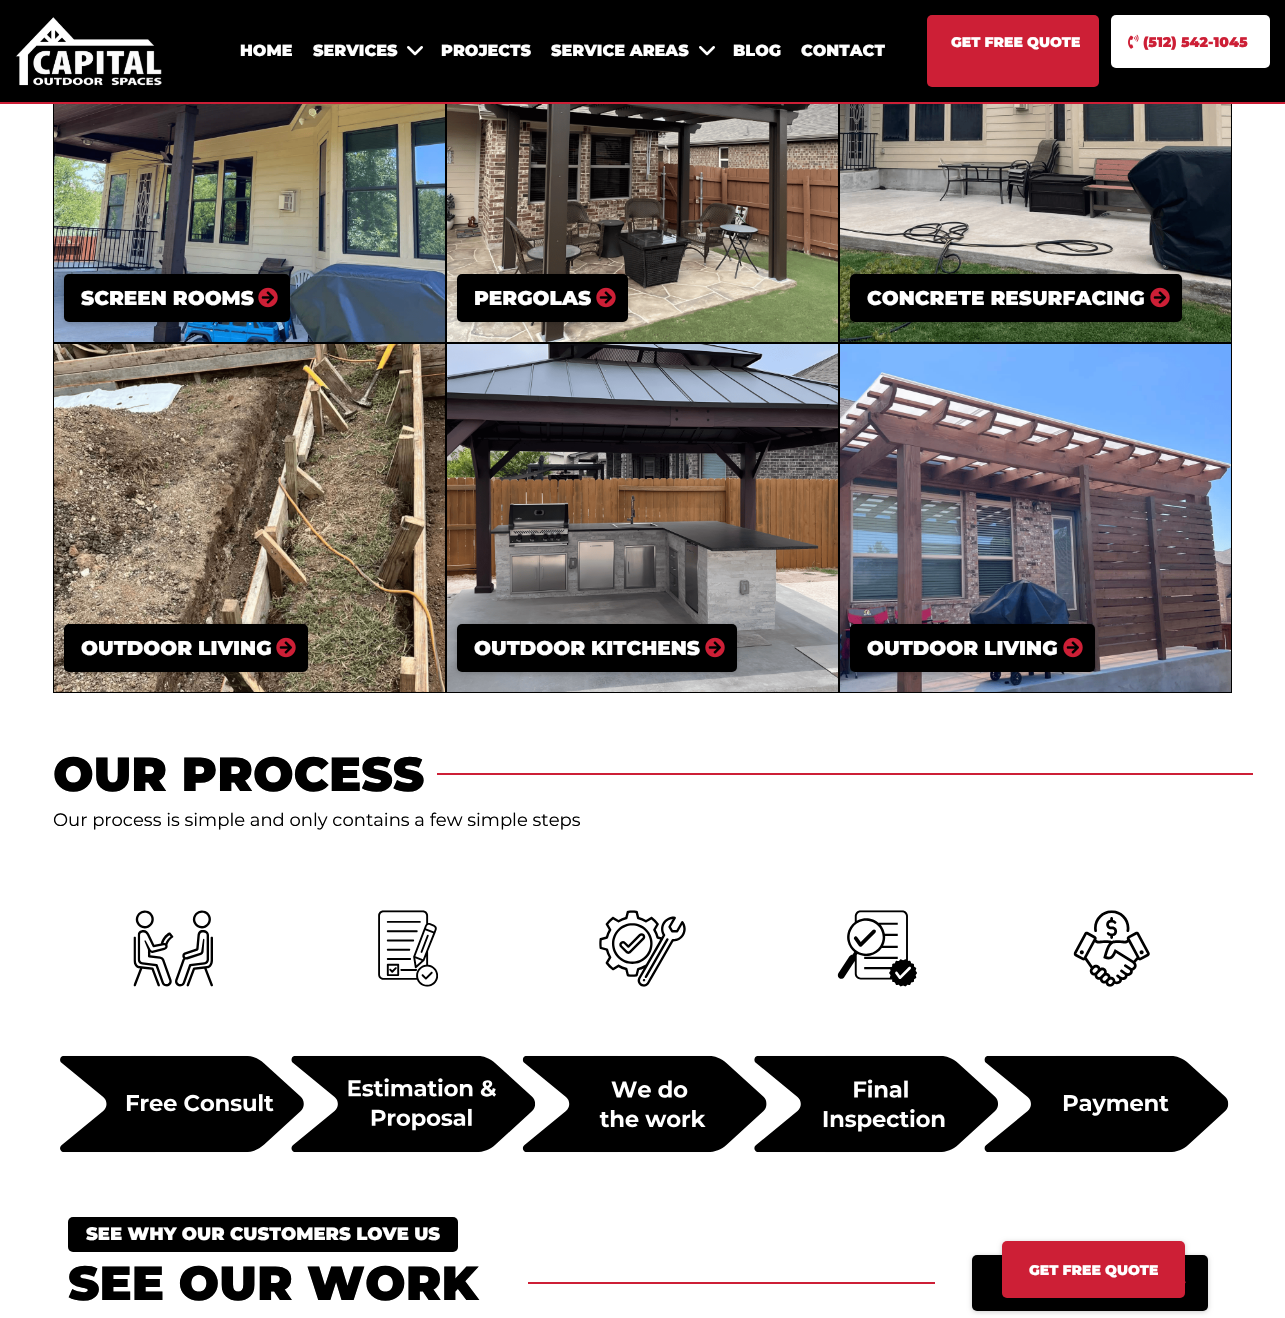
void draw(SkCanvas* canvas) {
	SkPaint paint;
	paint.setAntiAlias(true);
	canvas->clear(0xffffffff);
	paint.setColor(0xff000000);
	canvas->drawRect(SkRect::MakeXYWH(0, 0, 1285, 102), paint);
	paint.setColor(0xffcd1f36);
	canvas->drawRect(SkRect::MakeXYWH(0, 102, 1285, 2), paint);
	canvas->drawImageRect(SkImages::DeferredFromEncodedData(SkData::MakeFromFileName("img1.png")), SkRect::MakeXYWH(15, 17, 147, 69), SkSamplingOptions());
	SkFont f1(fontMgr->matchFamilyStyle("Montserrat", SkFontStyle(900, SkFontStyle::kNormal_Width, SkFontStyle::kUpright_Slant)), 16);
	f1.setSubpixel(true);
	paint.setColor(0xffffffff);
	canvas->drawString("HOME", 240, 56, f1, paint);
	canvas->drawString("SERVICES", 313, 56, f1, paint);
	canvas->drawImageRect(SkImages::DeferredFromEncodedData(SkData::MakeFromFileName("img2.png")), SkRect::MakeXYWH(407, 46, 16, 10), SkSamplingOptions());
	canvas->drawString("PROJECTS", 441, 56, f1, paint);
	canvas->drawString("SERVICE AREAS", 551, 56, f1, paint);
	canvas->drawImageRect(SkImages::DeferredFromEncodedData(SkData::MakeFromFileName("img2.png")), SkRect::MakeXYWH(699, 46, 16, 10), SkSamplingOptions());
	canvas->drawString("BLOG", 733, 56, f1, paint);
	canvas->drawString("CONTACT", 801, 56, f1, paint);
	paint.setColor(0xffcd1f36);
	canvas->drawRoundRect(SkRect::MakeXYWH(927, 15, 172, 72), 5, 5, paint);
	SkFont f2(fontMgr->matchFamilyStyle("Montserrat", SkFontStyle(900, SkFontStyle::kNormal_Width, SkFontStyle::kUpright_Slant)), 14);
	f2.setSubpixel(true);
	paint.setColor(0xffffffff);
	canvas->drawString("GET FREE QUOTE", 951, 47, f2, paint);
	canvas->drawRoundRect(SkRect::MakeXYWH(1111, 15, 159, 53), 5, 5, paint);
	canvas->drawImageRect(SkImages::DeferredFromEncodedData(SkData::MakeFromFileName("img3.png")), SkRect::MakeXYWH(1128, 34, 11, 15), SkSamplingOptions());
	paint.setColor(0xffcd1f36);
	canvas->drawString("(512) 542-1045", 1143, 47, f2, paint);
	paint.setColor(0xff000000);
	canvas->drawRect(SkRect::MakeXYWH(53, 104, 1179, 239), paint);
	canvas->drawImageRect(SkImages::DeferredFromEncodedData(SkData::MakeFromFileName("img4.png")), SkRect::MakeXYWH(54, 104, 391, 238), SkSamplingOptions());
	paint.setColor(0x33000000);
	paint.setMaskFilter(SkMaskFilter::MakeBlur(kNormal_SkBlurStyle, 2.5));
	canvas->drawRoundRect(SkRect::MakeXYWH(64, 275, 226, 48), 5, 5, paint);
	paint.setMaskFilter(nullptr);
	paint.setColor(0xff000000);
	canvas->drawRoundRect(SkRect::MakeXYWH(64, 274, 226, 48), 5, 5, paint);
	SkFont f3(fontMgr->matchFamilyStyle("Montserrat", SkFontStyle(900, SkFontStyle::kNormal_Width, SkFontStyle::kUpright_Slant)), 20);
	f3.setSubpixel(true);
	paint.setColor(0xffffffff);
	canvas->drawString("SCREEN ROOMS", 81, 305, f3, paint);
	canvas->drawImageRect(SkImages::DeferredFromEncodedData(SkData::MakeFromFileName("img5.png")), SkRect::MakeXYWH(258, 287, 20, 21), SkSamplingOptions());
	canvas->drawImageRect(SkImages::DeferredFromEncodedData(SkData::MakeFromFileName("img6.png")), SkRect::MakeXYWH(447, 104, 391, 238), SkSamplingOptions());
	paint.setColor(0x33000000);
	paint.setMaskFilter(SkMaskFilter::MakeBlur(kNormal_SkBlurStyle, 2.5));
	canvas->drawRoundRect(SkRect::MakeXYWH(457, 275, 171, 48), 5, 5, paint);
	paint.setMaskFilter(nullptr);
	paint.setColor(0xff000000);
	canvas->drawRoundRect(SkRect::MakeXYWH(457, 274, 171, 48), 5, 5, paint);
	paint.setColor(0xffffffff);
	canvas->drawString("PERGOLAS", 474, 305, f3, paint);
	canvas->drawImageRect(SkImages::DeferredFromEncodedData(SkData::MakeFromFileName("img5.png")), SkRect::MakeXYWH(596, 287, 20, 21), SkSamplingOptions());
	canvas->drawImageRect(SkImages::DeferredFromEncodedData(SkData::MakeFromFileName("img7.png")), SkRect::MakeXYWH(840, 104, 391, 238), SkSamplingOptions());
	paint.setColor(0x33000000);
	paint.setMaskFilter(SkMaskFilter::MakeBlur(kNormal_SkBlurStyle, 2.5));
	canvas->drawRoundRect(SkRect::MakeXYWH(850, 275, 332, 48), 5, 5, paint);
	paint.setMaskFilter(nullptr);
	paint.setColor(0xff000000);
	canvas->drawRoundRect(SkRect::MakeXYWH(850, 274, 332, 48), 5, 5, paint);
	paint.setColor(0xffffffff);
	canvas->drawString("CONCRETE RESURFACING", 867, 305, f3, paint);
	canvas->drawImageRect(SkImages::DeferredFromEncodedData(SkData::MakeFromFileName("img5.png")), SkRect::MakeXYWH(1150, 287, 20, 21), SkSamplingOptions());
	paint.setColor(0xff000000);
	canvas->drawRect(SkRect::MakeXYWH(53, 343, 1179, 350), paint);
	canvas->drawImageRect(SkImages::DeferredFromEncodedData(SkData::MakeFromFileName("img8.png")), SkRect::MakeXYWH(54, 344, 391, 348), SkSamplingOptions());
	paint.setColor(0x33000000);
	paint.setMaskFilter(SkMaskFilter::MakeBlur(kNormal_SkBlurStyle, 2.5));
	canvas->drawRoundRect(SkRect::MakeXYWH(64, 625, 244, 48), 5, 5, paint);
	paint.setMaskFilter(nullptr);
	paint.setColor(0xff000000);
	canvas->drawRoundRect(SkRect::MakeXYWH(64, 624, 244, 48), 5, 5, paint);
	paint.setColor(0xffffffff);
	canvas->drawString("OUTDOOR LIVING", 81, 655, f3, paint);
	canvas->drawImageRect(SkImages::DeferredFromEncodedData(SkData::MakeFromFileName("img5.png")), SkRect::MakeXYWH(276, 637, 20, 21), SkSamplingOptions());
	canvas->drawImageRect(SkImages::DeferredFromEncodedData(SkData::MakeFromFileName("img9.png")), SkRect::MakeXYWH(447, 344, 391, 348), SkSamplingOptions());
	paint.setColor(0x33000000);
	paint.setMaskFilter(SkMaskFilter::MakeBlur(kNormal_SkBlurStyle, 2.5));
	canvas->drawRoundRect(SkRect::MakeXYWH(457, 625, 280, 48), 5, 5, paint);
	paint.setMaskFilter(nullptr);
	paint.setColor(0xff000000);
	canvas->drawRoundRect(SkRect::MakeXYWH(457, 624, 280, 48), 5, 5, paint);
	paint.setColor(0xffffffff);
	canvas->drawString("OUTDOOR KITCHENS", 474, 655, f3, paint);
	canvas->drawImageRect(SkImages::DeferredFromEncodedData(SkData::MakeFromFileName("img5.png")), SkRect::MakeXYWH(705, 637, 20, 21), SkSamplingOptions());
	canvas->drawImageRect(SkImages::DeferredFromEncodedData(SkData::MakeFromFileName("img10.png")), SkRect::MakeXYWH(840, 344, 391, 348), SkSamplingOptions());
	paint.setColor(0x33000000);
	paint.setMaskFilter(SkMaskFilter::MakeBlur(kNormal_SkBlurStyle, 2.5));
	canvas->drawRoundRect(SkRect::MakeXYWH(850, 625, 245, 48), 5, 5, paint);
	paint.setMaskFilter(nullptr);
	paint.setColor(0xff000000);
	canvas->drawRoundRect(SkRect::MakeXYWH(850, 624, 245, 48), 5, 5, paint);
	paint.setColor(0xffffffff);
	canvas->drawString("OUTDOOR LIVING", 867, 655, f3, paint);
	canvas->drawImageRect(SkImages::DeferredFromEncodedData(SkData::MakeFromFileName("img5.png")), SkRect::MakeXYWH(1063, 637, 20, 21), SkSamplingOptions());
	SkFont f4(fontMgr->matchFamilyStyle("Montserrat", SkFontStyle(900, SkFontStyle::kNormal_Width, SkFontStyle::kUpright_Slant)), 48);
	f4.setSubpixel(true);
	paint.setColor(0xff000000);
	canvas->drawString("OUR PROCESS", 53, 791, f4, paint);
	paint.setColor(0xffcd1f36);
	canvas->drawRect(SkRect::MakeXYWH(437, 773, 816, 2), paint);
	SkFont f5(fontMgr->matchFamilyStyle("Montserrat", SkFontStyle::Normal()), 18);
	f5.setSubpixel(true);
	paint.setColor(0xff000000);
	canvas->drawString("Our process is simple and only contains a few simple steps", 53, 826, f5, paint);
	canvas->drawImageRect(SkImages::DeferredFromEncodedData(SkData::MakeFromFileName("img11.png")), SkRect::MakeXYWH(60, 910, 1169, 243), SkSamplingOptions());
	canvas->drawRoundRect(SkRect::MakeXYWH(68, 1217, 390, 35), 5, 5, paint);
	SkFont f6(fontMgr->matchFamilyStyle("Montserrat", SkFontStyle(900, SkFontStyle::kNormal_Width, SkFontStyle::kUpright_Slant)), 18);
	f6.setSubpixel(true);
	paint.setColor(0xffffffff);
	canvas->drawString("SEE WHY OUR CUSTOMERS LOVE US", 86, 1240, f6, paint);
	paint.setColor(0xff000000);
	canvas->drawString("SEE OUR WORK", 68, 1300, f4, paint);
	paint.setColor(0xffcd1f36);
	canvas->drawRect(SkRect::MakeXYWH(528, 1282, 407, 2), paint);
	paint.setColor(0x33000000);
	paint.setMaskFilter(SkMaskFilter::MakeBlur(kNormal_SkBlurStyle, 2.5));
	canvas->drawRoundRect(SkRect::MakeXYWH(972, 1256, 236, 56), 5, 5, paint);
	paint.setMaskFilter(nullptr);
	paint.setColor(0xff000000);
	canvas->drawRoundRect(SkRect::MakeXYWH(972, 1255, 236, 56), 5, 5, paint);
	canvas->drawImageRect(SkImages::DeferredFromEncodedData(SkData::MakeFromFileName("img12.png")), SkRect::MakeXYWH(1185, 1281, 1, 3), SkSamplingOptions());
	paint.setColor(0x33000000);
	paint.setMaskFilter(SkMaskFilter::MakeBlur(kNormal_SkBlurStyle, 2.5));
	canvas->drawRoundRect(SkRect::MakeXYWH(1002, 1242, 183, 57), 5, 5, paint);
	paint.setMaskFilter(nullptr);
	paint.setColor(0xffcd1f36);
	canvas->drawRoundRect(SkRect::MakeXYWH(1002, 1241, 183, 57), 5, 5, paint);
	paint.setColor(0xffffffff);
	canvas->drawString("GET FREE QUOTE", 1029, 1275, f2, paint);
}
